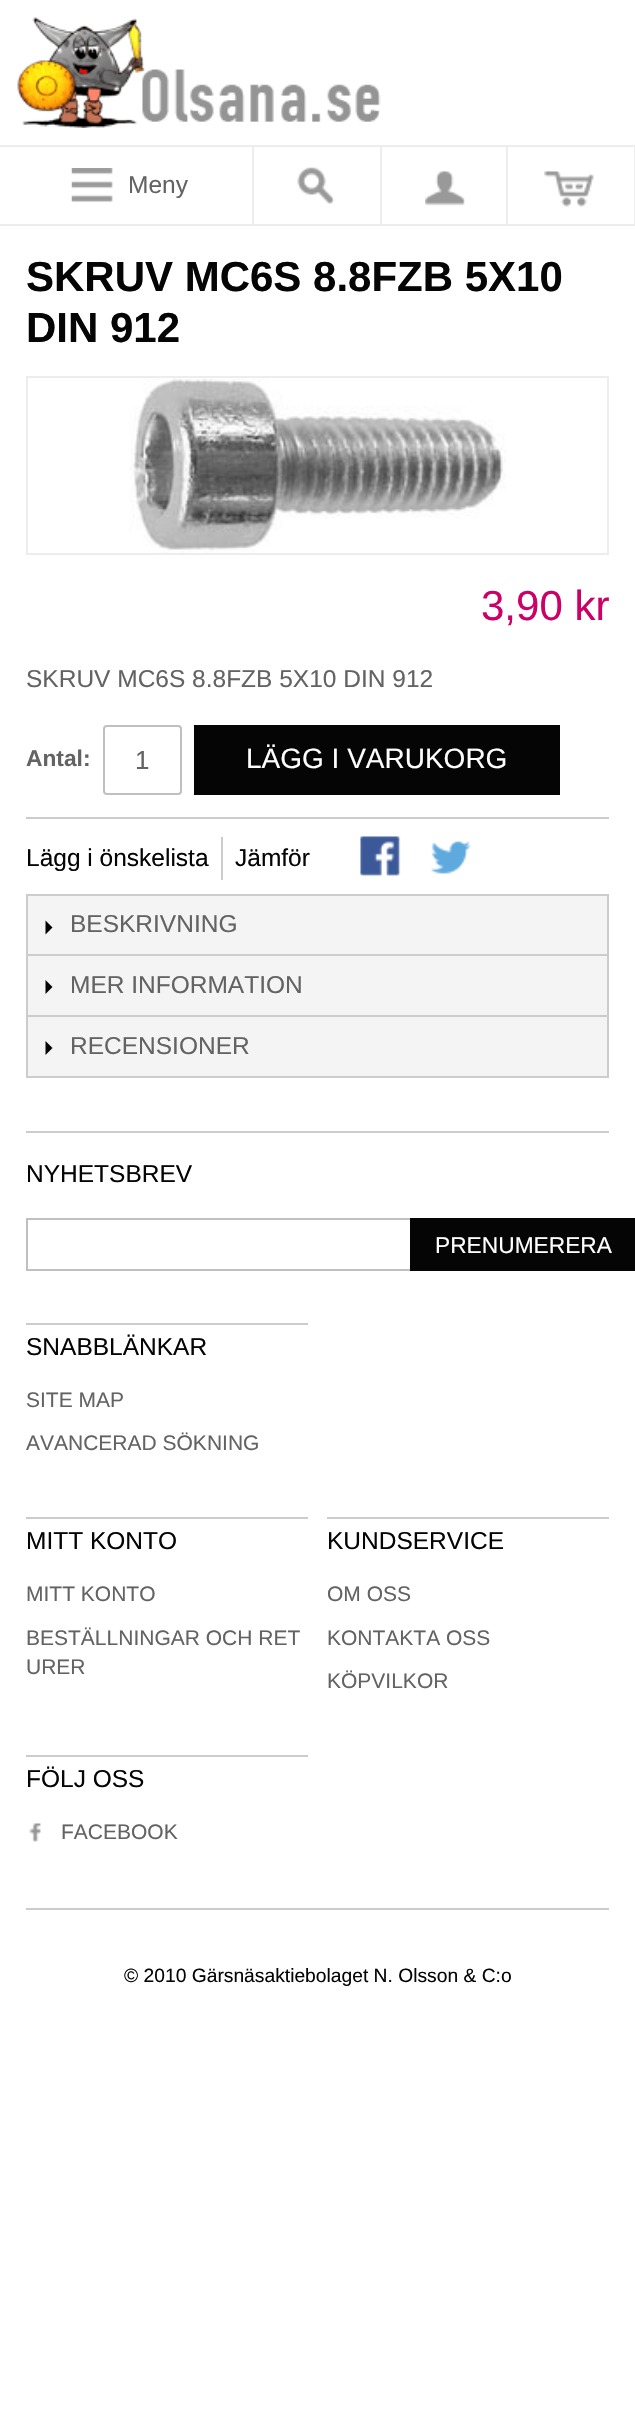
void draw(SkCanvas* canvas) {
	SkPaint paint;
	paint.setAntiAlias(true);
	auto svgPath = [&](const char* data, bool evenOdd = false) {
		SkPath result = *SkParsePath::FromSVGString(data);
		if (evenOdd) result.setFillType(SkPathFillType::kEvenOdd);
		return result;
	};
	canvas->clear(0xffffffff);
	canvas->drawImageRect(SkImages::DeferredFromEncodedData(SkData::MakeFromFileName("img1.png")), SkRect::MakeXYWH(17, 17, 364, 111), SkSamplingOptions());
	paint.setColor(0xffededed);
	canvas->drawRect(SkRect::MakeXYWH(0, 145, 635, 2), paint);
	canvas->drawRect(SkRect::MakeXYWH(0, 224, 635, 2), paint);
	canvas->drawRect(SkRect::MakeXYWH(252, 147, 2, 77), paint);
	canvas->drawImageRect(SkImages::DeferredFromEncodedData(SkData::MakeFromFileName("img2.png")), SkRect::MakeXYWH(71, 168, 42, 35), SkSamplingOptions());
	SkFont f1(fontMgr->matchFamilyStyle("Liberation Sans", SkFontStyle::Normal()), 24.5);
	f1.setSubpixel(true);
	paint.setColor(0xff636363);
	canvas->drawString("Meny", 128, 193, f1, paint);
	paint.setColor(0xffededed);
	canvas->drawRect(SkRect::MakeXYWH(380, 147, 2, 77), paint);
	canvas->drawImageRect(SkImages::DeferredFromEncodedData(SkData::MakeFromFileName("img3.png")), SkRect::MakeXYWH(297, 167, 38, 37), SkSamplingOptions());
	canvas->drawRect(SkRect::MakeXYWH(506, 147, 2, 77), paint);
	canvas->drawImageRect(SkImages::DeferredFromEncodedData(SkData::MakeFromFileName("img4.png")), SkRect::MakeXYWH(425, 170, 40, 36), SkSamplingOptions());
	canvas->drawRect(SkRect::MakeXYWH(634, 147, 1, 77), paint);
	canvas->drawImageRect(SkImages::DeferredFromEncodedData(SkData::MakeFromFileName("img5.png")), SkRect::MakeXYWH(544, 170, 50, 37), SkSamplingOptions());
	SkFont f2(fontMgr->matchFamilyStyle("Liberation Sans", SkFontStyle::Bold()), 42);
	f2.setSubpixel(true);
	paint.setColor(0xff050505);
	canvas->drawString("SKRUV MC6S 8.8FZB 5X10", 26, 291, f2, paint);
	canvas->drawString("DIN 912", 26, 342, f2, paint);
	paint.setStroke(true);
	paint.setStrokeWidth(2);
	paint.setColor(0xffededed);
	canvas->drawRect(SkRect::MakeXYWH(27, 377, 581, 177), paint);
	canvas->drawImageRect(SkImages::DeferredFromEncodedData(SkData::MakeFromFileName("img6.png")), SkRect::MakeXYWH(129, 378, 377, 175), SkSamplingOptions());
	SkFont f3(fontMgr->matchFamilyStyle("Liberation Sans", SkFontStyle::Normal()), 42);
	f3.setSubpixel(true);
	paint.setStroke(false);
	paint.setColor(0xffcc0066);
	canvas->drawString("3,90 kr", 481, 620, f3, paint);
	paint.setColor(0xff636363);
	canvas->drawString("SKRUV MC6S 8.8FZB 5X10 DIN 912", 26, 687, f1, paint);
	paint.setColor(0xffcccccc);
	canvas->drawRect(SkRect::MakeXYWH(26, 817, 583, 2), paint);
	SkFont f4(fontMgr->matchFamilyStyle("Liberation Sans", SkFontStyle::Bold()), 22.75);
	f4.setSubpixel(true);
	paint.setColor(0xff636363);
	canvas->drawString("Antal:", 26, 766, f4, paint);
	paint.setStroke(true);
	paint.setColor(0xffc0c0c0);
	canvas->drawRoundRect(SkRect::MakeXYWH(104, 726, 77, 68), 3, 3, paint);
	SkFont f5(fontMgr->matchFamilyStyle("Liberation Sans", SkFontStyle::Normal()), 26);
	f5.setSubpixel(true);
	paint.setStroke(false);
	paint.setColor(0xff636363);
	canvas->drawString("1", 135, 769, f5, paint);
	paint.setColor(0xff050505);
	canvas->drawRect(SkRect::MakeXYWH(194, 725, 366, 70), paint);
	SkFont f6(fontMgr->matchFamilyStyle("Liberation Sans", SkFontStyle::Normal()), 28);
	f6.setSubpixel(true);
	paint.setColor(0xffffffff);
	canvas->drawString("LÄGG I VARUKORG", 246, 768, f6, paint);
	paint.setColor(0xffcccccc);
	canvas->drawRect(SkRect::MakeXYWH(221, 837, 2, 43), paint);
	paint.setColor(0xff050505);
	canvas->drawString("Lägg i önskelista", 26, 866, f1, paint);
	canvas->drawString("Jämför", 235, 866, f1, paint);
	canvas->drawImageRect(SkImages::DeferredFromEncodedData(SkData::MakeFromFileName("img7.png")), SkRect::MakeXYWH(360, 836, 41, 41), SkSamplingOptions());
	canvas->drawImageRect(SkImages::DeferredFromEncodedData(SkData::MakeFromFileName("img8.png")), SkRect::MakeXYWH(430, 840, 41, 35), SkSamplingOptions());
	paint.setColor(0xfff4f4f4);
	canvas->drawRect(SkRect::MakeXYWH(28, 896, 579, 58), paint);
	paint.setColor(0xffcccccc);
	canvas->drawRect(SkRect::MakeXYWH(26, 894, 583, 2), paint);
	canvas->drawRect(SkRect::MakeXYWH(607, 894, 2, 60), paint);
	canvas->drawRect(SkRect::MakeXYWH(26, 894, 2, 60), paint);
	paint.setColor(0xff050505);
	canvas->drawPath(svgPath("M45.5 934.5V920.5L52.5 927.5Z"), paint);
	paint.setColor(0xff636363);
	canvas->drawString("BESKRIVNING", 70, 932, f1, paint);
	paint.setColor(0xfff4f4f4);
	canvas->drawRect(SkRect::MakeXYWH(28, 956, 579, 59), paint);
	paint.setColor(0xffcccccc);
	canvas->drawRect(SkRect::MakeXYWH(26, 954, 583, 2), paint);
	canvas->drawRect(SkRect::MakeXYWH(607, 954, 2, 61), paint);
	canvas->drawRect(SkRect::MakeXYWH(26, 954, 2, 61), paint);
	paint.setColor(0xff050505);
	canvas->drawPath(svgPath("M45.5 994V980L52.5 987Z"), paint);
	paint.setColor(0xff636363);
	canvas->drawString("MER INFORMATION", 70, 993, f1, paint);
	paint.setColor(0xfff4f4f4);
	canvas->drawRect(SkRect::MakeXYWH(27, 1016, 581, 61), paint);
	paint.setStroke(true);
	paint.setColor(0xffcccccc);
	canvas->drawRect(SkRect::MakeXYWH(27, 1016, 581, 61), paint);
	paint.setStroke(false);
	paint.setColor(0xff050505);
	canvas->drawPath(svgPath("M45.5 1055V1041L52.5 1048Z"), paint);
	paint.setColor(0xff636363);
	canvas->drawString("RECENSIONER", 70, 1054, f1, paint);
	paint.setColor(0xffcccccc);
	canvas->drawRect(SkRect::MakeXYWH(26, 1131, 583, 2), paint);
	paint.setColor(0xff050505);
	canvas->drawString("NYHETSBREV", 26, 1182, f1, paint);
	paint.setColor(0xffc0c0c0);
	canvas->drawRect(SkRect::MakeXYWH(26, 1218, 384, 2), paint);
	canvas->drawRect(SkRect::MakeXYWH(26, 1269, 384, 2), paint);
	canvas->drawRect(SkRect::MakeXYWH(26, 1218, 2, 53), paint);
	paint.setColor(0xff050505);
	canvas->drawRect(SkRect::MakeXYWH(410, 1218, 225, 53), paint);
	SkFont f7(fontMgr->matchFamilyStyle("Liberation Sans", SkFontStyle::Normal()), 22.75);
	f7.setSubpixel(true);
	paint.setColor(0xffffffff);
	canvas->drawString("PRENUMERERA", 435, 1253, f7, paint);
	paint.setColor(0xffcccccc);
	canvas->drawRect(SkRect::MakeXYWH(26, 1323, 282, 2), paint);
	paint.setColor(0xff050505);
	canvas->drawString("SNABBLÄNKAR", 26, 1355, f1, paint);
	SkFont f8(fontMgr->matchFamilyStyle("Liberation Sans", SkFontStyle::Normal()), 21);
	f8.setSubpixel(true);
	paint.setColor(0xff636363);
	canvas->drawString("SITE MAP", 26, 1407, f8, paint);
	canvas->drawString("AVANCERAD SÖKNING", 26, 1450, f8, paint);
	paint.setColor(0xffcccccc);
	canvas->drawRect(SkRect::MakeXYWH(26, 1517, 282, 2), paint);
	paint.setColor(0xff050505);
	canvas->drawString("MITT KONTO", 26, 1549, f1, paint);
	paint.setColor(0xff636363);
	canvas->drawString("MITT KONTO", 26, 1601, f8, paint);
	canvas->drawString("BESTÄLLNINGAR OCH RET", 26, 1645, f8, paint);
	canvas->drawString("URER", 26, 1674, f8, paint);
	paint.setColor(0xffcccccc);
	canvas->drawRect(SkRect::MakeXYWH(327, 1517, 282, 2), paint);
	paint.setColor(0xff050505);
	canvas->drawString("KUNDSERVICE", 327, 1549, f1, paint);
	paint.setColor(0xff636363);
	canvas->drawString("OM OSS", 327, 1601, f8, paint);
	canvas->drawString("KONTAKTA OSS", 327, 1645, f8, paint);
	canvas->drawString("KÖPVILKOR", 327, 1688, f8, paint);
	paint.setColor(0xffcccccc);
	canvas->drawRect(SkRect::MakeXYWH(26, 1755, 282, 2), paint);
	paint.setColor(0xff050505);
	canvas->drawString("FÖLJ OSS", 26, 1787, f1, paint);
	canvas->drawImageRect(SkImages::DeferredFromEncodedData(SkData::MakeFromFileName("img9.png")), SkRect::MakeXYWH(29, 1823, 12, 19), SkSamplingOptions());
	paint.setColor(0xff636363);
	canvas->drawString("FACEBOOK", 61, 1839, f8, paint);
	paint.setColor(0xffcccccc);
	canvas->drawRect(SkRect::MakeXYWH(26, 1908, 583, 2), paint);
	SkFont f9(fontMgr->matchFamilyStyle("Liberation Sans", SkFontStyle::Normal()), 19.25);
	f9.setSubpixel(true);
	paint.setColor(0xff050505);
	canvas->drawString("© 2010 Gärsnäsaktiebolaget N. Olsson & C:o", 124, 1982, f9, paint);
}
